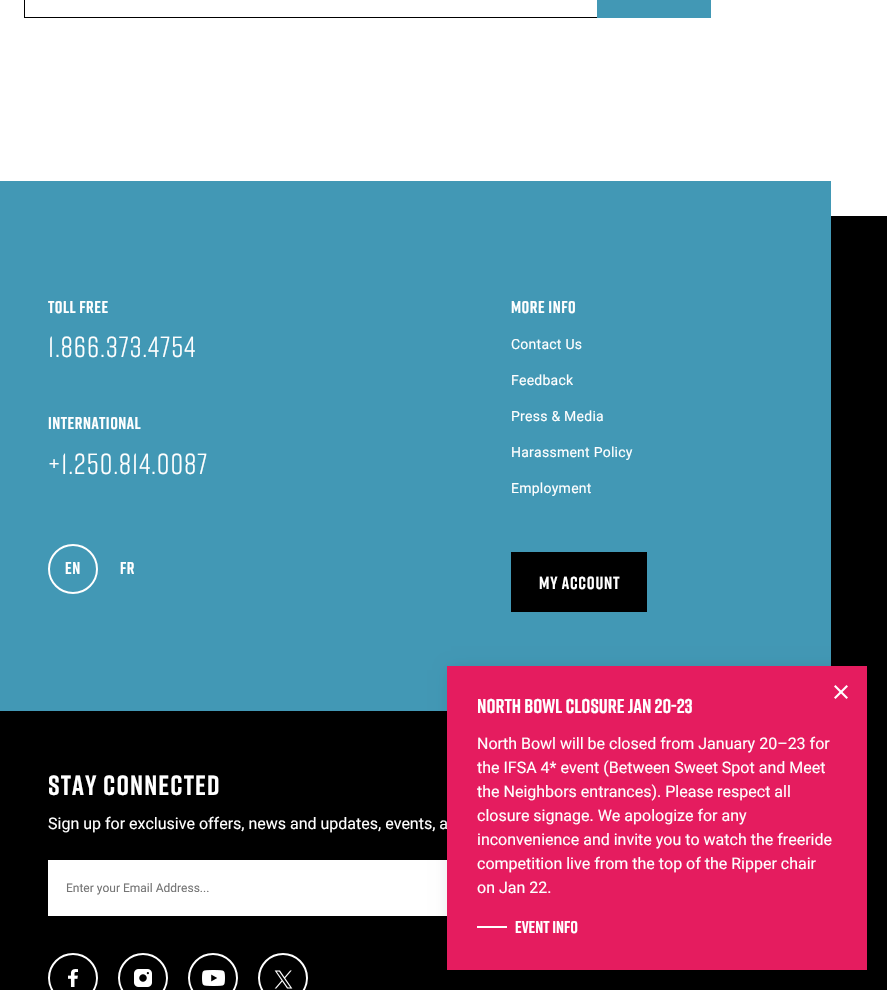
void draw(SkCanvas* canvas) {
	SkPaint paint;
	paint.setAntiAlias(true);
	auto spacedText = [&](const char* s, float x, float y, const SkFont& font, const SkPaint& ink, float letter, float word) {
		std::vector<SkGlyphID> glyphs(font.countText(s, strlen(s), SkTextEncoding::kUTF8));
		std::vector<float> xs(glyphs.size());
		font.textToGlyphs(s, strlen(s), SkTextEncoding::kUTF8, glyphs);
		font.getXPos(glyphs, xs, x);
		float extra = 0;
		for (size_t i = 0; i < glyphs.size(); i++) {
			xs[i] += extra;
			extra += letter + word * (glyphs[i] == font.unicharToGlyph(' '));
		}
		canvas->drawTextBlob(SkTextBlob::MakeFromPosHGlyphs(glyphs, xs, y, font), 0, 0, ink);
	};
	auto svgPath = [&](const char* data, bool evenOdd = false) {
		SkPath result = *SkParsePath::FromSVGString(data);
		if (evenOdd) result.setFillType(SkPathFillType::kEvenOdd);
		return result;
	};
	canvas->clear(0xffffffff);
	paint.setStroke(true);
	paint.setStrokeWidth(1);
	paint.setColor(0xff000000);
	canvas->drawRect(SkRect::MakeXYWH(24.5, -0.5, 573, 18), paint);
	paint.setStroke(false);
	paint.setColor(0xff4298b5);
	canvas->drawRect(SkRect::MakeXYWH(597, 0, 114, 18), paint);
	paint.setColor(0xff000000);
	canvas->drawRect(SkRect::MakeXYWH(0, 216, 887, 774), paint);
	paint.setColor(0xff4298b5);
	canvas->drawRect(SkRect::MakeXYWH(0, 181, 831, 530), paint);
	SkFont f1(fontMgr->matchFamilyStyle("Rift", SkFontStyle::Bold()), 17);
	f1.setSubpixel(true);
	paint.setColor(0xffffffff);
	spacedText("TOLL FREE", 48, 313, f1, paint, 0.5, 0);
	SkFont f2(fontMgr->matchFamilyStyle("Rift", SkFontStyle::Normal()), 29);
	f2.setSubpixel(true);
	spacedText("1.866.373.4754", 48, 357, f2, paint, 1.1, 0);
	spacedText("MORE INFO", 511, 313, f1, paint, 0.5, 0);
	SkFont f3(fontMgr->matchFamilyStyle("Roboto", SkFontStyle::Normal()), 14);
	f3.setSubpixel(true);
	spacedText("Contact Us", 511, 349, f3, paint, 0.25, 0);
	spacedText("Feedback", 511, 385, f3, paint, 0.25, 0);
	spacedText("Press & Media", 511, 421, f3, paint, 0.25, 0);
	spacedText("Harassment Policy", 511, 457, f3, paint, 0.25, 0);
	spacedText("Employment", 511, 493, f3, paint, 0.25, 0);
	paint.setColor(0xff000000);
	canvas->drawRect(SkRect::MakeXYWH(511, 552, 136, 60), paint);
	SkFont f4(fontMgr->matchFamilyStyle("Rift", SkFontStyle::Bold()), 17.5);
	f4.setSubpixel(true);
	paint.setColor(0xffffffff);
	spacedText("MY ACCOUNT", 539, 589, f4, paint, 0.75, 0);
	spacedText("INTERNATIONAL", 48, 429, f1, paint, 0.5, 0);
	spacedText("+1.250.814.0087", 48, 474, f2, paint, 1.1, 0);
	paint.setStroke(true);
	paint.setStrokeWidth(2);
	canvas->drawCircle(73, 569, 24, paint);
	paint.setStroke(false);
	spacedText("EN", 65, 574, f1, paint, 0.5, 0);
	spacedText("FR", 120, 574, f1, paint, 0.5, 0);
	SkFont f5(fontMgr->matchFamilyStyle("Rift", SkFontStyle::Bold()), 27.75);
	f5.setSubpixel(true);
	spacedText("STAY CONNECTED", 48, 795, f5, paint, 1.1, 0);
	SkFont f6(fontMgr->matchFamilyStyle("Roboto", SkFontStyle::Normal()), 16);
	f6.setSubpixel(true);
	canvas->drawString("Sign up for exclusive offers, news and updates, events, a", 48, 829, f6, paint);
	canvas->drawRect(SkRect::MakeXYWH(48, 860, 399, 56), paint);
	SkFont f7(fontMgr->matchFamilyStyle("Roboto", SkFontStyle::Normal()), 12);
	f7.setSubpixel(true);
	paint.setColor(0xff757575);
	canvas->drawString("Enter your Email Address...", 66, 892, f7, paint);
	paint.setStroke(true);
	paint.setColor(0xffffffff);
	canvas->drawCircle(73, 978, 24, paint);
	canvas->drawImageRect(SkImages::DeferredFromEncodedData(SkData::MakeFromFileName("img1.png")), SkRect::MakeXYWH(68, 969, 10, 18), SkSamplingOptions());
	canvas->drawCircle(143, 978, 24, paint);
	canvas->drawImageRect(SkImages::DeferredFromEncodedData(SkData::MakeFromFileName("img2.png")), SkRect::MakeXYWH(134, 969, 18, 18), SkSamplingOptions());
	canvas->drawCircle(213, 978, 24, paint);
	canvas->drawImageRect(SkImages::DeferredFromEncodedData(SkData::MakeFromFileName("img3.png")), SkRect::MakeXYWH(202, 970, 23, 16), SkSamplingOptions());
	canvas->drawCircle(283, 978, 24, paint);
	canvas->drawImageRect(SkImages::DeferredFromEncodedData(SkData::MakeFromFileName("img4.png")), SkRect::MakeXYWH(274, 970, 19, 19), SkSamplingOptions());
	paint.setStroke(false);
	paint.setColor(0x21000000);
	paint.setMaskFilter(SkMaskFilter::MakeBlur(kNormal_SkBlurStyle, 8));
	canvas->drawRect(SkRect::MakeXYWH(451, 670, 420, 304), paint);
	paint.setMaskFilter(nullptr);
	paint.setColor(0xffe51c5f);
	canvas->drawRect(SkRect::MakeXYWH(447, 666, 420, 304), paint);
	paint.setColor(0xffffffff);
	canvas->drawPath(svgPath("M846.5 685L848 686.5L835.5 699L834 697.5Z"), paint);
	canvas->drawPath(svgPath("M834 686.5L835.5 685L848 697.5L846.5 699Z"), paint);
	SkFont f8(fontMgr->matchFamilyStyle("Rift", SkFontStyle::Bold()), 20);
	f8.setSubpixel(true);
	canvas->drawString("NORTH BOWL CLOSURE JAN 20-23", 477, 713, f8, paint);
	canvas->drawString("North Bowl will be closed from January 20–23 for", 477, 749, f6, paint);
	canvas->drawString("the IFSA 4* event (Between Sweet Spot and Meet", 477, 773, f6, paint);
	canvas->drawString("the Neighbors entrances). Please respect all", 477, 797, f6, paint);
	canvas->drawString("closure signage. We apologize for any", 477, 821, f6, paint);
	canvas->drawString("inconvenience and invite you to watch the freeride", 477, 845, f6, paint);
	canvas->drawString("competition live from the top of the Ripper chair", 477, 869, f6, paint);
	canvas->drawString("on Jan 22.", 477, 893, f6, paint);
	canvas->drawRect(SkRect::MakeXYWH(477, 926, 30, 2), paint);
	canvas->drawString("EVENT INFO", 515, 933, f1, paint);
}
